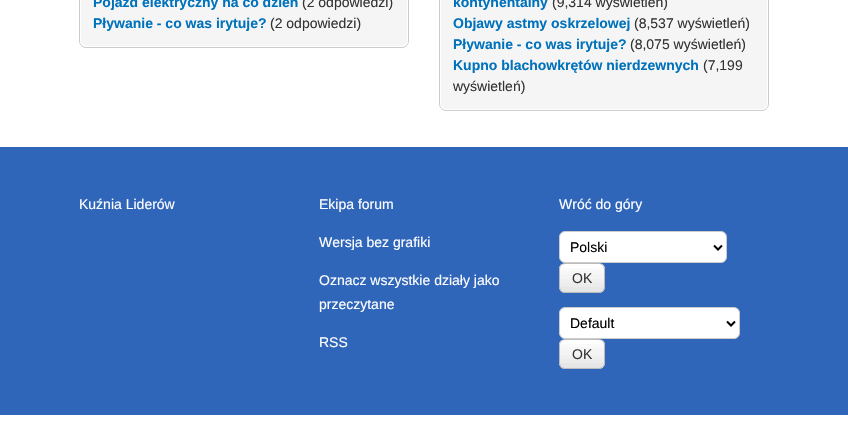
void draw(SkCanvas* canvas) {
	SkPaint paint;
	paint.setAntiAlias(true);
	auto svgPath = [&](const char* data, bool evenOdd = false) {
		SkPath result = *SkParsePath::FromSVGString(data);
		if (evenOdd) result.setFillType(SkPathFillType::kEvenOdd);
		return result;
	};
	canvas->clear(0xffffffff);
	paint.setStroke(true);
	paint.setStrokeWidth(1);
	paint.setColor(0xffcccccc);
	canvas->drawRoundRect(SkRect::MakeXYWH(79.5, -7.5, 329, 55), 6.5, 6.5, paint);
	paint.setStroke(false);
	paint.setColor(0xfff5f5f5);
	canvas->drawPath(svgPath("M81-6H407V40C407 43.5 404.5 46 401 46H87C83.5 46 81 43.5 81 40Z"), paint);
	SkFont f1(fontMgr->matchFamilyStyle("Liberation Sans", SkFontStyle::Bold()), 14);
	f1.setSubpixel(true);
	paint.setColor(0xff0072bc);
	canvas->drawString("Pojazd elektryczny na co dzień", 93, 7, f1, paint);
	SkFont f2(fontMgr->matchFamilyStyle("Liberation Sans", SkFontStyle::Normal()), 14);
	f2.setSubpixel(true);
	paint.setColor(0xff333333);
	canvas->drawString("(2 odpowiedzi)", 302, 7, f2, paint);
	paint.setColor(0xff0072bc);
	canvas->drawString("Pływanie - co was irytuje?", 93, 28, f1, paint);
	paint.setColor(0xff333333);
	canvas->drawString("(2 odpowiedzi)", 270, 28, f2, paint);
	paint.setStroke(true);
	paint.setColor(0xffcccccc);
	canvas->drawRoundRect(SkRect::MakeXYWH(439.5, -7.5, 329, 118), 6.5, 6.5, paint);
	paint.setStroke(false);
	paint.setColor(0xfff5f5f5);
	canvas->drawPath(svgPath("M441-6H767V103C767 106.5 764.5 109 761 109H447C443.5 109 441 106.5 441 103Z"), paint);
	paint.setColor(0xff0072bc);
	canvas->drawString("kontynentalny", 453, 7, f1, paint);
	paint.setColor(0xff333333);
	canvas->drawString("(9,314 wyświetleń)", 552, 7, f2, paint);
	paint.setColor(0xff0072bc);
	canvas->drawString("Objawy astmy oskrzelowej", 453, 28, f1, paint);
	paint.setColor(0xff333333);
	canvas->drawString("(8,537 wyświetleń)", 634, 28, f2, paint);
	paint.setColor(0xff0072bc);
	canvas->drawString("Pływanie - co was irytuje?", 453, 49, f1, paint);
	paint.setColor(0xff333333);
	canvas->drawString("(8,075 wyświetleń)", 630, 49, f2, paint);
	paint.setColor(0xff0072bc);
	canvas->drawString("Kupno blachowkrętów nierdzewnych", 453, 70, f1, paint);
	paint.setColor(0xff333333);
	canvas->drawString("(7,199", 703, 70, f2, paint);
	canvas->drawString("wyświetleń)", 453, 91, f2, paint);
	paint.setColor(0xff2f66b9);
	canvas->drawRect(SkRect::MakeXYWH(0, 147, 848, 268), paint);
	paint.setColor(0xffffffff);
	canvas->drawString("Kuźnia Liderów", 79, 209, f2, paint);
	canvas->drawString("Ekipa forum", 319, 209, f2, paint);
	canvas->drawString("Wersja bez grafiki", 319, 247, f2, paint);
	canvas->drawString("Oznacz wszystkie działy jako", 319, 285, f2, paint);
	canvas->drawString("przeczytane", 319, 309, f2, paint);
	canvas->drawString("RSS", 319, 347, f2, paint);
	canvas->drawString("Wróć do góry", 559, 209, f2, paint);
	canvas->drawRoundRect(SkRect::MakeXYWH(559.5, 231.5, 167, 31), 5.5, 5.5, paint);
	paint.setStroke(true);
	paint.setColor(0xffcccccc);
	canvas->drawRoundRect(SkRect::MakeXYWH(559.5, 231.5, 167, 31), 5.5, 5.5, paint);
	paint.setStrokeWidth(2);
	paint.setColor(0xff000000);
	canvas->drawPath(svgPath("M714 245.5L718 249.5L722 245.5"), paint);
	paint.setStroke(false);
	canvas->drawString("Polski", 570, 252, f2, paint);
	canvas->drawImageRect(SkImages::DeferredFromEncodedData(SkData::MakeFromFileName("img1.png")), SkRect::MakeXYWH(559, 264, 46, 29), SkSamplingOptions());
	paint.setStroke(true);
	paint.setStrokeWidth(1);
	paint.setColor(0xffbbbbbb);
	canvas->drawRoundRect(SkRect::MakeXYWH(559.5, 263.5, 45, 29), 5.5, 5.5, paint);
	paint.setStroke(false);
	paint.setColor(0xff333333);
	canvas->drawString("OK", 572, 283, f2, paint);
	paint.setColor(0xffffffff);
	canvas->drawRoundRect(SkRect::MakeXYWH(559.5, 307.5, 180, 31), 5.5, 5.5, paint);
	paint.setStroke(true);
	paint.setColor(0xffcccccc);
	canvas->drawRoundRect(SkRect::MakeXYWH(559.5, 307.5, 180, 31), 5.5, 5.5, paint);
	paint.setStrokeWidth(2);
	paint.setColor(0xff000000);
	canvas->drawPath(svgPath("M727 321.5L731 325.5L735 321.5"), paint);
	paint.setStroke(false);
	canvas->drawString("Default", 570, 328, f2, paint);
	canvas->drawImageRect(SkImages::DeferredFromEncodedData(SkData::MakeFromFileName("img1.png")), SkRect::MakeXYWH(559, 340, 46, 29), SkSamplingOptions());
	paint.setStroke(true);
	paint.setStrokeWidth(1);
	paint.setColor(0xffbbbbbb);
	canvas->drawRoundRect(SkRect::MakeXYWH(559.5, 339.5, 45, 29), 5.5, 5.5, paint);
	paint.setStroke(false);
	paint.setColor(0xff333333);
	canvas->drawString("OK", 572, 359, f2, paint);
}
